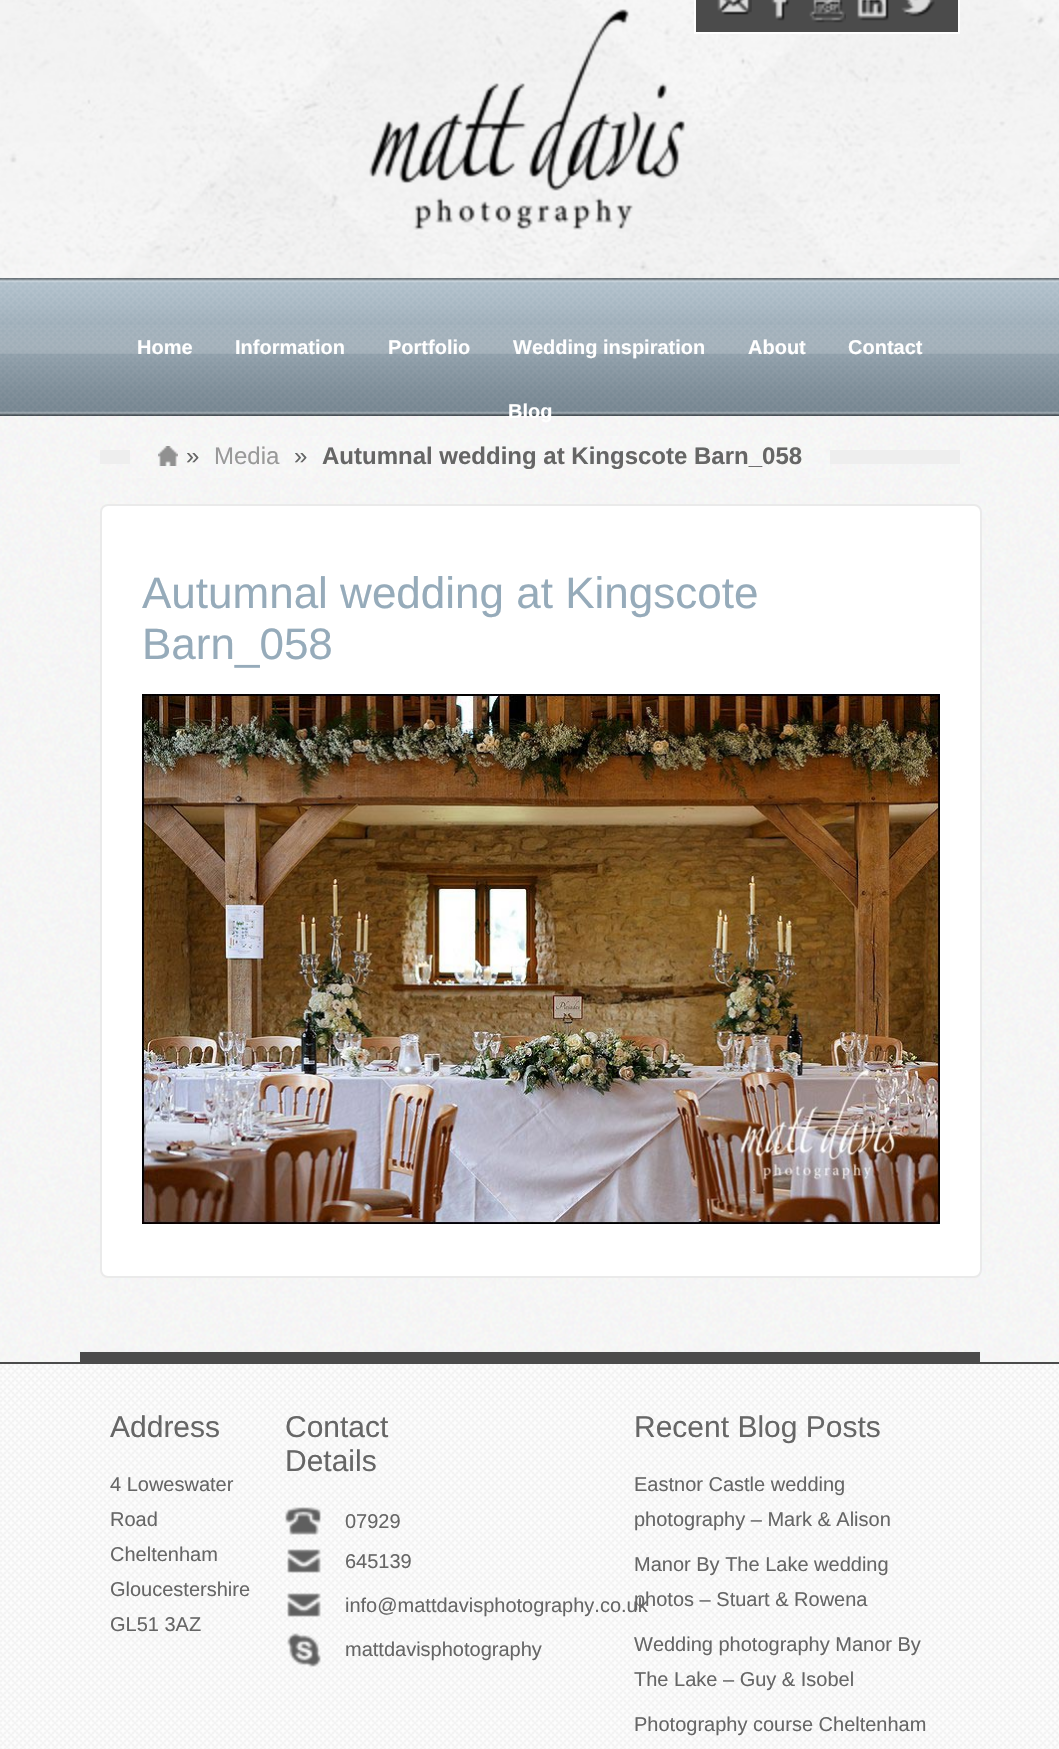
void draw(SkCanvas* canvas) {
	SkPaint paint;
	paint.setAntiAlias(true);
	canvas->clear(0xffffffff);
	canvas->drawImageRect(SkImages::DeferredFromEncodedData(SkData::MakeFromFileName("img1.png")), SkRect::MakeXYWH(0, 416, 1059, 946), SkSamplingOptions());
	canvas->drawImageRect(SkImages::DeferredFromEncodedData(SkData::MakeFromFileName("img2.png")), SkRect::MakeXYWH(0, 0, 1059, 278), SkSamplingOptions());
	canvas->drawImageRect(SkImages::DeferredFromEncodedData(SkData::MakeFromFileName("img3.png")), SkRect::MakeXYWH(369, 9, 316, 221), SkSamplingOptions());
	paint.setColor(0xff4b4b4b);
	canvas->drawRect(SkRect::MakeXYWH(696, 0, 262, 32), paint);
	paint.setColor(0xffffffff);
	canvas->drawRect(SkRect::MakeXYWH(958, 0, 2, 34), paint);
	canvas->drawRect(SkRect::MakeXYWH(694, 32, 266, 2), paint);
	canvas->drawRect(SkRect::MakeXYWH(694, 0, 2, 34), paint);
	canvas->drawImageRect(SkImages::DeferredFromEncodedData(SkData::MakeFromFileName("img4.png")), SkRect::MakeXYWH(717, 0, 35, 15), SkSamplingOptions());
	canvas->drawImageRect(SkImages::DeferredFromEncodedData(SkData::MakeFromFileName("img5.png")), SkRect::MakeXYWH(771, 0, 19, 21), SkSamplingOptions());
	canvas->drawImageRect(SkImages::DeferredFromEncodedData(SkData::MakeFromFileName("img6.png")), SkRect::MakeXYWH(809, 0, 37, 23), SkSamplingOptions());
	canvas->drawImageRect(SkImages::DeferredFromEncodedData(SkData::MakeFromFileName("img7.png")), SkRect::MakeXYWH(857, 0, 32, 21), SkSamplingOptions());
	canvas->drawImageRect(SkImages::DeferredFromEncodedData(SkData::MakeFromFileName("img8.png")), SkRect::MakeXYWH(901, 0, 34, 17), SkSamplingOptions());
	paint.setColor(0xff96abba);
	canvas->drawRect(SkRect::MakeXYWH(0, 278, 1059, 138), paint);
	canvas->drawImageRect(SkImages::DeferredFromEncodedData(SkData::MakeFromFileName("img9.png")), SkRect::MakeXYWH(0, 278, 1059, 138), SkSamplingOptions());
	canvas->drawImageRect(SkImages::DeferredFromEncodedData(SkData::MakeFromFileName("img10.png")), SkRect::MakeXYWH(0, 325, 1059, 29), SkSamplingOptions());
	SkFont f1(fontMgr->matchFamilyStyle("Liberation Sans", SkFontStyle::Bold()), 20);
	f1.setSubpixel(true);
	paint.setColor(0xffffffff);
	canvas->drawString("Home", 137, 354, f1, paint);
	canvas->drawString("Information", 235, 354, f1, paint);
	canvas->drawString("Portfolio", 388, 354, f1, paint);
	canvas->drawString("Wedding inspiration", 513, 354, f1, paint);
	canvas->drawString("About", 748, 354, f1, paint);
	canvas->drawString("Contact", 848, 354, f1, paint);
	canvas->drawString("Blog", 508, 418, f1, paint);
	paint.setColor(0xff4b4b4b);
	canvas->drawRect(SkRect::MakeXYWH(80, 1352, 900, 10), paint);
	paint.setColor(0xffeeeeee);
	canvas->drawRect(SkRect::MakeXYWH(100, 450, 860, 14), paint);
	canvas->drawImageRect(SkImages::DeferredFromEncodedData(SkData::MakeFromFileName("img11.png")), SkRect::MakeXYWH(130, 436, 700, 42), SkSamplingOptions());
	canvas->drawImageRect(SkImages::DeferredFromEncodedData(SkData::MakeFromFileName("img12.png")), SkRect::MakeXYWH(158, 446, 20, 20), SkSamplingOptions());
	SkFont f2(fontMgr->matchFamilyStyle("Liberation Sans", SkFontStyle::Normal()), 24);
	f2.setSubpixel(true);
	paint.setColor(0xff666666);
	canvas->drawString("»", 186, 464, f2, paint);
	paint.setColor(0xff999999);
	canvas->drawString("Media", 214, 464, f2, paint);
	paint.setColor(0xff666666);
	canvas->drawString("»", 294, 464, f2, paint);
	SkFont f3(fontMgr->matchFamilyStyle("Liberation Sans", SkFontStyle::Bold()), 24);
	f3.setSubpixel(true);
	canvas->drawString("Autumnal wedding at Kingscote Barn_058", 322, 464, f3, paint);
	paint.setColor(0xffffffff);
	canvas->drawRoundRect(SkRect::MakeXYWH(101, 505, 880, 772), 7, 7, paint);
	paint.setStroke(true);
	paint.setStrokeWidth(2);
	paint.setColor(0xffeaeaea);
	canvas->drawRoundRect(SkRect::MakeXYWH(101, 505, 880, 772), 7, 7, paint);
	SkFont f4(fontMgr->matchFamilyStyle("Liberation Sans", SkFontStyle::Normal()), 44);
	f4.setSubpixel(true);
	paint.setStroke(false);
	paint.setColor(0xff96abba);
	canvas->drawString("Autumnal wedding at Kingscote", 142, 608, f4, paint);
	canvas->drawString("Barn_058", 142, 659, f4, paint);
	canvas->drawImageRect(SkImages::DeferredFromEncodedData(SkData::MakeFromFileName("img13.png")), SkRect::MakeXYWH(142, 694, 798, 530), SkSamplingOptions());
	canvas->drawImageRect(SkImages::DeferredFromEncodedData(SkData::MakeFromFileName("img14.png")), SkRect::MakeXYWH(0, 1364, 1059, 385), SkSamplingOptions());
	paint.setColor(0xff4b4b4b);
	canvas->drawRect(SkRect::MakeXYWH(0, 1362, 1059, 2), paint);
	SkFont f5(fontMgr->matchFamilyStyle("Liberation Sans", SkFontStyle::Normal()), 30);
	f5.setSubpixel(true);
	paint.setColor(0xff666666);
	canvas->drawString("Address", 110, 1437, f5, paint);
	SkFont f6(fontMgr->matchFamilyStyle("Liberation Sans", SkFontStyle::Normal()), 20);
	f6.setSubpixel(true);
	canvas->drawString("4 Loweswater", 110, 1491, f6, paint);
	canvas->drawString("Road", 110, 1526, f6, paint);
	canvas->drawString("Cheltenham", 110, 1561, f6, paint);
	canvas->drawString("Gloucestershire", 110, 1596, f6, paint);
	canvas->drawString("GL51 3AZ", 110, 1631, f6, paint);
	canvas->drawString("Contact", 285, 1437, f5, paint);
	canvas->drawString("Details", 285, 1471, f5, paint);
	canvas->drawImageRect(SkImages::DeferredFromEncodedData(SkData::MakeFromFileName("img15.png")), SkRect::MakeXYWH(285, 1507, 36, 66), SkSamplingOptions());
	canvas->drawString("07929", 345, 1528, f6, paint);
	canvas->drawString("645139", 345, 1568, f6, paint);
	canvas->drawImageRect(SkImages::DeferredFromEncodedData(SkData::MakeFromFileName("img16.png")), SkRect::MakeXYWH(287, 1593, 34, 24), SkSamplingOptions());
	canvas->drawString("info@mattdavisphotography.co.uk", 345, 1612, f6, paint);
	canvas->drawImageRect(SkImages::DeferredFromEncodedData(SkData::MakeFromFileName("img17.png")), SkRect::MakeXYWH(287, 1633, 34, 34), SkSamplingOptions());
	canvas->drawString("mattdavisphotography", 345, 1656, f6, paint);
	canvas->drawString("Recent Blog Posts", 634, 1437, f5, paint);
	canvas->drawString("Eastnor Castle wedding", 634, 1491, f6, paint);
	canvas->drawString("photography – Mark & Alison", 634, 1526, f6, paint);
	canvas->drawString("Manor By The Lake wedding", 634, 1571, f6, paint);
	canvas->drawString("photos – Stuart & Rowena", 634, 1606, f6, paint);
	canvas->drawString("Wedding photography Manor By", 634, 1651, f6, paint);
	canvas->drawString("The Lake – Guy & Isobel", 634, 1686, f6, paint);
	canvas->drawString("Photography course Cheltenham", 634, 1731, f6, paint);
}
